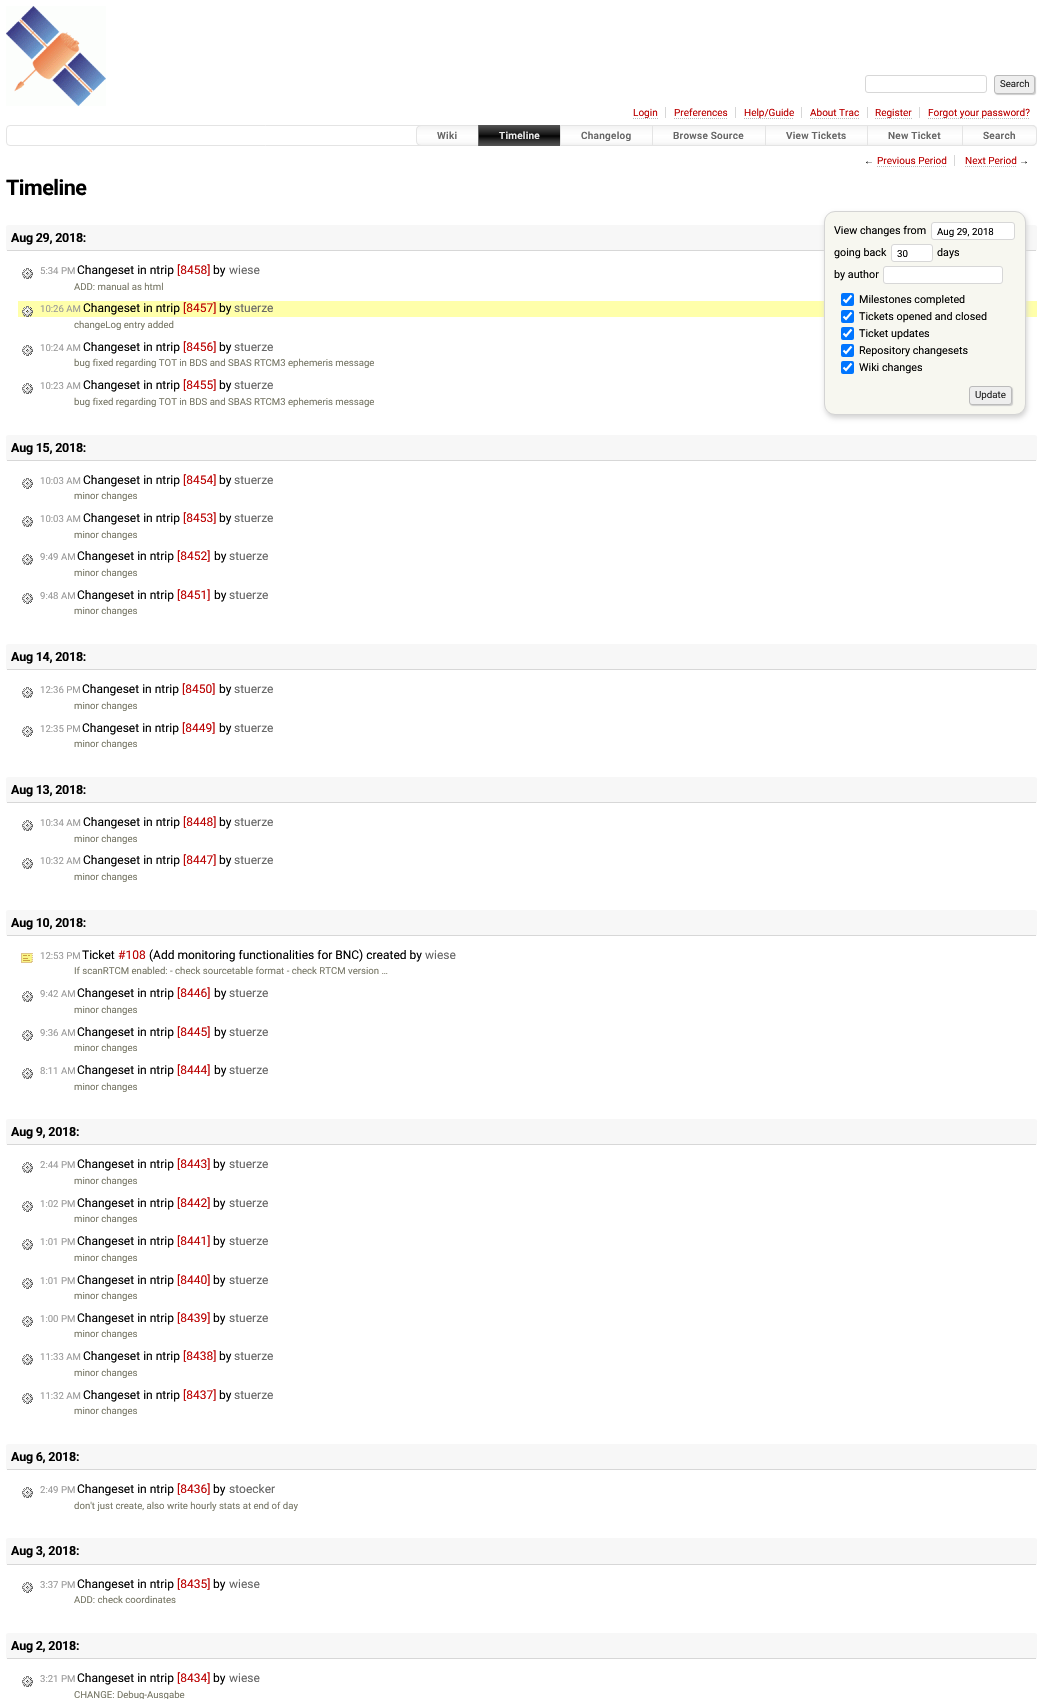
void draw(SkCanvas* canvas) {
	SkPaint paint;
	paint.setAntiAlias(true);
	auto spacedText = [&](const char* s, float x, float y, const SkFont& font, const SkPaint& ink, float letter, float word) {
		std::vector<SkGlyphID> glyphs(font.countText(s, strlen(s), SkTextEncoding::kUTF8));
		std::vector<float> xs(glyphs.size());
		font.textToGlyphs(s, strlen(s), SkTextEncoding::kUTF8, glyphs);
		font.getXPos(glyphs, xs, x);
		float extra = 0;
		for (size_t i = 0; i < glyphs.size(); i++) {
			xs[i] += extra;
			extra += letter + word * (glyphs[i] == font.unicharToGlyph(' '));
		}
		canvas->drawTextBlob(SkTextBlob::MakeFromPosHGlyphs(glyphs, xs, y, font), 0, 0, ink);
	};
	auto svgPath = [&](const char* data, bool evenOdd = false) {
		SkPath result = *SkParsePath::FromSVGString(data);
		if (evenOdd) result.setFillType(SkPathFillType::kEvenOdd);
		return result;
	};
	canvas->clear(0xffffffff);
	canvas->drawImageRect(SkImages::DeferredFromEncodedData(SkData::MakeFromFileName("img1.png")), SkRect::MakeXYWH(6, 6, 100, 100), SkSamplingOptions());
	paint.setStroke(true);
	paint.setStrokeWidth(1);
	paint.setColor(0xffd7d7d7);
	canvas->drawRoundRect(SkRect::MakeXYWH(865.5, 75.5, 121, 17), 2.5, 2.5, paint);
	paint.setStroke(false);
	paint.setColor(0xffcccccc);
	paint.setMaskFilter(SkMaskFilter::MakeBlur(kNormal_SkBlurStyle, 0.5));
	canvas->drawRoundRect(SkRect::MakeXYWH(995, 76, 41, 19), 3, 3, paint);
	paint.setMaskFilter(nullptr);
	paint.setColor(0xffeeeeee);
	canvas->drawRoundRect(SkRect::MakeXYWH(994.5, 75.5, 40, 18), 2.5, 2.5, paint);
	paint.setStroke(true);
	paint.setColor(0xffbbbbbb);
	canvas->drawRoundRect(SkRect::MakeXYWH(994.5, 75.5, 40, 18), 2.5, 2.5, paint);
	SkFont f1(fontMgr->matchFamilyStyle("Roboto", SkFontStyle::Normal()), 9.6);
	f1.setSubpixel(true);
	paint.setStroke(false);
	paint.setColor(0xff222222);
	canvas->drawString("Search", 1000, 87, f1, paint);
	paint.setColor(0xffd7d7d7);
	canvas->drawRect(SkRect::MakeXYWH(665, 107, 1, 11), paint);
	paint.setStroke(true);
	paint.setColor(0xffbbbbbb);
	paint.setPathEffect(SkDashPathEffect::Make({{1, 1}}, 0));
	canvas->drawPath(svgPath("M633 118.5H658"), paint);
	paint.setPathEffect(nullptr);
	SkFont f2(fontMgr->matchFamilyStyle("Roboto", SkFontStyle::Normal()), 10);
	f2.setSubpixel(true);
	paint.setStroke(false);
	paint.setColor(0xffbb0000);
	canvas->drawString("Login", 633, 116, f2, paint);
	paint.setColor(0xffd7d7d7);
	canvas->drawRect(SkRect::MakeXYWH(735, 107, 1, 11), paint);
	paint.setColor(0xffbb0000);
	canvas->drawString("Preferences", 674, 116, f2, paint);
	paint.setStroke(true);
	paint.setColor(0xffbbbbbb);
	paint.setPathEffect(SkDashPathEffect::Make({{1, 1}}, 0));
	canvas->drawPath(svgPath("M674 118.5H728"), paint);
	paint.setPathEffect(nullptr);
	paint.setStroke(false);
	paint.setColor(0xffd7d7d7);
	canvas->drawRect(SkRect::MakeXYWH(801, 107, 1, 11), paint);
	paint.setColor(0xffbb0000);
	canvas->drawString("Help/Guide", 744, 116, f2, paint);
	paint.setStroke(true);
	paint.setColor(0xffbbbbbb);
	paint.setPathEffect(SkDashPathEffect::Make({{1, 1}}, 0));
	canvas->drawPath(svgPath("M744 118.5H794"), paint);
	paint.setPathEffect(nullptr);
	paint.setStroke(false);
	paint.setColor(0xffd7d7d7);
	canvas->drawRect(SkRect::MakeXYWH(867, 107, 1, 11), paint);
	paint.setColor(0xffbb0000);
	canvas->drawString("About Trac", 810, 116, f2, paint);
	paint.setStroke(true);
	paint.setColor(0xffbbbbbb);
	paint.setPathEffect(SkDashPathEffect::Make({{1, 1}}, 0));
	canvas->drawPath(svgPath("M810 118.5H859"), paint);
	paint.setPathEffect(nullptr);
	paint.setStroke(false);
	paint.setColor(0xffd7d7d7);
	canvas->drawRect(SkRect::MakeXYWH(919, 107, 1, 11), paint);
	paint.setStroke(true);
	paint.setColor(0xffbbbbbb);
	paint.setPathEffect(SkDashPathEffect::Make({{1, 1}}, 0));
	canvas->drawPath(svgPath("M875 118.5H912"), paint);
	paint.setPathEffect(nullptr);
	paint.setStroke(false);
	paint.setColor(0xffbb0000);
	canvas->drawString("Register", 875, 116, f2, paint);
	paint.setStroke(true);
	paint.setColor(0xffbbbbbb);
	paint.setPathEffect(SkDashPathEffect::Make({{1, 1}}, 0));
	canvas->drawPath(svgPath("M928 118.5H1030"), paint);
	paint.setPathEffect(nullptr);
	paint.setStroke(false);
	paint.setColor(0xffbb0000);
	canvas->drawString("Forgot your password?", 928, 116, f2, paint);
	paint.setStroke(true);
	paint.setColor(0xffe4e4e4);
	canvas->drawRoundRect(SkRect::MakeXYWH(6.5, 125.5, 1030, 20), 3.5, 3.5, paint);
	canvas->save();
	canvas->clipPath(svgPath("M421 125H479V146H421C418 146 416 144 416 141V130C416 127 418 125 421 125Z"), true);
	paint.setStroke(false);
	{
		const SkColor colors[] = {0xfff2f2f2, 0xfffafafa, 0xfffefefe, 0xffffffff, 0xfffafafa, 0xfff2f2f2};
		const float stops[] = {0, 0.25, 0.49, 0.51, 0.85, 1};
		const SkPoint ends[] = {{448, 126}, {448, 145}};
		paint.setShader(SkGradientShader::MakeLinear(ends, colors, stops, 6, SkTileMode::kClamp));
		paint.setAlpha(255);
	}
	canvas->drawRect(SkRect::MakeXYWH(416, 126, 62, 19), paint);
	canvas->restore();
	paint.setStroke(true);
	paint.setShader(nullptr);
	paint.setColor(0xffe4e4e4);
	canvas->drawPath(svgPath("M421 125.5H478.5V145.5H421C418.5 145.5 416.5 143.5 416.5 141V130C416.5 127.5 418.5 125.5 421 125.5Z"), paint);
	SkFont f3(fontMgr->matchFamilyStyle("Roboto", SkFontStyle(600, SkFontStyle::kNormal_Width, SkFontStyle::kUpright_Slant)), 10);
	f3.setSubpixel(true);
	paint.setStroke(false);
	paint.setColor(0xff666666);
	spacedText("Wiki", 437, 139, f3, paint, 0.25, 0);
	paint.setStroke(true);
	canvas->drawRect(SkRect::MakeXYWH(478.5, 125.5, 82, 20), paint);
	paint.setStroke(false);
	{
		const SkColor colors[] = {0xff555555, 0xff333333, 0xff111111, 0xff000000, 0xff333333, 0xff555555};
		const float stops[] = {0, 0.25, 0.49, 0.51, 0.75, 1};
		const SkPoint ends[] = {{520, 125}, {520, 146}};
		paint.setShader(SkGradientShader::MakeLinear(ends, colors, stops, 6, SkTileMode::kClamp));
		paint.setAlpha(255);
	}
	canvas->drawRect(SkRect::MakeXYWH(479, 125, 81, 21), paint);
	paint.setShader(nullptr);
	paint.setColor(0xffeeeeee);
	spacedText("Timeline", 499, 139, f3, paint, 0.25, 0);
	{
		const SkColor colors[] = {0xfff2f2f2, 0xfffafafa, 0xfffefefe, 0xffffffff, 0xfffafafa, 0xfff2f2f2};
		const float stops[] = {0, 0.25, 0.49, 0.51, 0.85, 1};
		const SkPoint ends[] = {{607, 126}, {607, 145}};
		paint.setShader(SkGradientShader::MakeLinear(ends, colors, stops, 6, SkTileMode::kClamp));
		paint.setAlpha(255);
	}
	canvas->drawRect(SkRect::MakeXYWH(561, 126, 91, 19), paint);
	paint.setStroke(true);
	paint.setShader(nullptr);
	paint.setColor(0xffe4e4e4);
	canvas->drawRect(SkRect::MakeXYWH(560.5, 125.5, 92, 20), paint);
	paint.setStroke(false);
	paint.setColor(0xff666666);
	spacedText("Changelog", 581, 139, f3, paint, 0.25, 0);
	{
		const SkColor colors[] = {0xfff2f2f2, 0xfffafafa, 0xfffefefe, 0xffffffff, 0xfffafafa, 0xfff2f2f2};
		const float stops[] = {0, 0.25, 0.49, 0.51, 0.85, 1};
		const SkPoint ends[] = {{709, 126}, {709, 145}};
		paint.setShader(SkGradientShader::MakeLinear(ends, colors, stops, 6, SkTileMode::kClamp));
		paint.setAlpha(255);
	}
	canvas->drawRect(SkRect::MakeXYWH(653, 126, 112, 19), paint);
	paint.setStroke(true);
	paint.setShader(nullptr);
	paint.setColor(0xffe4e4e4);
	canvas->drawRect(SkRect::MakeXYWH(652.5, 125.5, 113, 20), paint);
	paint.setStroke(false);
	paint.setColor(0xff666666);
	spacedText("Browse Source", 673, 139, f3, paint, 0.25, 0);
	{
		const SkColor colors[] = {0xfff2f2f2, 0xfffafafa, 0xfffefefe, 0xffffffff, 0xfffafafa, 0xfff2f2f2};
		const float stops[] = {0, 0.25, 0.49, 0.51, 0.85, 1};
		const SkPoint ends[] = {{817, 126}, {817, 145}};
		paint.setShader(SkGradientShader::MakeLinear(ends, colors, stops, 6, SkTileMode::kClamp));
		paint.setAlpha(255);
	}
	canvas->drawRect(SkRect::MakeXYWH(766, 126, 101, 19), paint);
	paint.setStroke(true);
	paint.setShader(nullptr);
	paint.setColor(0xffe4e4e4);
	canvas->drawRect(SkRect::MakeXYWH(765.5, 125.5, 102, 20), paint);
	paint.setStroke(false);
	paint.setColor(0xff666666);
	spacedText("View Tickets", 786, 139, f3, paint, 0.25, 0);
	{
		const SkColor colors[] = {0xfff2f2f2, 0xfffafafa, 0xfffefefe, 0xffffffff, 0xfffafafa, 0xfff2f2f2};
		const float stops[] = {0, 0.25, 0.49, 0.51, 0.85, 1};
		const SkPoint ends[] = {{915, 126}, {915, 145}};
		paint.setShader(SkGradientShader::MakeLinear(ends, colors, stops, 6, SkTileMode::kClamp));
		paint.setAlpha(255);
	}
	canvas->drawRect(SkRect::MakeXYWH(868, 126, 94, 19), paint);
	paint.setStroke(true);
	paint.setShader(nullptr);
	paint.setColor(0xffe4e4e4);
	canvas->drawRect(SkRect::MakeXYWH(867.5, 125.5, 95, 20), paint);
	paint.setStroke(false);
	paint.setColor(0xff666666);
	spacedText("New Ticket", 888, 139, f3, paint, 0.25, 0);
	canvas->save();
	canvas->clipPath(svgPath("M962 125H1032C1035 125 1037 127 1037 130V141C1037 144 1035 146 1032 146H962Z"), true);
	{
		const SkColor colors[] = {0xfff2f2f2, 0xfffafafa, 0xfffefefe, 0xffffffff, 0xfffafafa, 0xfff2f2f2};
		const float stops[] = {0, 0.25, 0.49, 0.51, 0.85, 1};
		const SkPoint ends[] = {{1000, 126}, {1000, 145}};
		paint.setShader(SkGradientShader::MakeLinear(ends, colors, stops, 6, SkTileMode::kClamp));
		paint.setAlpha(255);
	}
	canvas->drawRect(SkRect::MakeXYWH(963, 126, 74, 19), paint);
	canvas->restore();
	paint.setStroke(true);
	paint.setShader(nullptr);
	paint.setColor(0xffe4e4e4);
	canvas->drawPath(svgPath("M962.5 125.5H1032C1034.5 125.5 1036.5 127.5 1036.5 130V141C1036.5 143.5 1034.5 145.5 1032 145.5H962.5Z"), paint);
	paint.setStroke(false);
	paint.setColor(0xff666666);
	spacedText("Search", 983, 139, f3, paint, 0.25, 0);
	paint.setColor(0xffd7d7d7);
	canvas->drawRect(SkRect::MakeXYWH(954, 155, 1, 11), paint);
	SkFont f4(fontMgr->matchFamilyStyle("Liberation Sans", SkFontStyle::Normal()), 10);
	f4.setSubpixel(true);
	paint.setColor(0xff000000);
	canvas->drawString("←", 864, 164, f4, paint);
	paint.setStroke(true);
	paint.setColor(0xffbbbbbb);
	paint.setPathEffect(SkDashPathEffect::Make({{1, 1}}, 0));
	canvas->drawPath(svgPath("M877 166.5H947"), paint);
	paint.setPathEffect(nullptr);
	paint.setStroke(false);
	paint.setColor(0xffbb0000);
	canvas->drawString("Previous Period", 877, 164, f2, paint);
	canvas->drawString("Next Period", 965, 164, f2, paint);
	paint.setStroke(true);
	paint.setColor(0xffbbbbbb);
	paint.setPathEffect(SkDashPathEffect::Make({{1, 1}}, 0));
	canvas->drawPath(svgPath("M965 166.5H1017"), paint);
	paint.setPathEffect(nullptr);
	paint.setStroke(false);
	paint.setColor(0xff000000);
	canvas->drawString("→", 1019, 164, f4, paint);
	SkFont f5(fontMgr->matchFamilyStyle("Roboto", SkFontStyle::Bold()), 21.5);
	f5.setSubpixel(true);
	spacedText("Timeline", 6, 195, f5, paint, -0.5, 0);
	paint.setColor(0xfff7f7f7);
	canvas->drawRoundRect(SkRect::MakeXYWH(6, 225, 1031, 26), 2.5, 2.5, paint);
	paint.setColor(0xffd7d7d7);
	canvas->drawRect(SkRect::MakeXYWH(7, 250, 1029, 1), paint);
	SkFont f6(fontMgr->matchFamilyStyle("Roboto", SkFontStyle::Bold()), 12.5);
	f6.setSubpixel(true);
	paint.setColor(0xff000000);
	spacedText("Aug 29, 2018:", 11, 242, f6, paint, -0.25, 0);
	paint.setColor(0xffffffaa);
	canvas->drawRect(SkRect::MakeXYWH(18, 301, 1019, 16), paint);
	paint.setColor(0xffd4d4d4);
	paint.setMaskFilter(SkMaskFilter::MakeBlur(kNormal_SkBlurStyle, 2.5));
	canvas->drawRoundRect(SkRect::MakeXYWH(825, 214, 202, 204), 11, 11, paint);
	paint.setMaskFilter(nullptr);
	paint.setColor(0xfff7f7f0);
	canvas->drawRoundRect(SkRect::MakeXYWH(824.5, 211.5, 201, 203), 10.5, 10.5, paint);
	paint.setStroke(true);
	paint.setColor(0xffd4d4d4);
	canvas->drawRoundRect(SkRect::MakeXYWH(824.5, 211.5, 201, 203), 10.5, 10.5, paint);
	SkFont f7(fontMgr->matchFamilyStyle("Roboto", SkFontStyle::Normal()), 10.75);
	f7.setSubpixel(true);
	paint.setStroke(false);
	paint.setColor(0xff000000);
	canvas->drawString("View changes from", 834, 234, f7, paint);
	paint.setColor(0xffffffff);
	canvas->drawRoundRect(SkRect::MakeXYWH(931.5, 222.5, 83, 17), 2.5, 2.5, paint);
	paint.setStroke(true);
	paint.setColor(0xffd7d7d7);
	canvas->drawRoundRect(SkRect::MakeXYWH(931.5, 222.5, 83, 17), 2.5, 2.5, paint);
	SkFont f8(fontMgr->matchFamilyStyle("Roboto", SkFontStyle::Normal()), 9.75);
	f8.setSubpixel(true);
	paint.setStroke(false);
	paint.setColor(0xff000000);
	canvas->drawString("Aug 29, 2018", 937, 235, f8, paint);
	canvas->drawString("going back", 834, 256, f7, paint);
	paint.setColor(0xffffffff);
	canvas->drawRoundRect(SkRect::MakeXYWH(891.5, 244.5, 41, 17), 2.5, 2.5, paint);
	paint.setStroke(true);
	paint.setColor(0xffd7d7d7);
	canvas->drawRoundRect(SkRect::MakeXYWH(891.5, 244.5, 41, 17), 2.5, 2.5, paint);
	paint.setStroke(false);
	paint.setColor(0xff000000);
	canvas->drawString("30", 897, 257, f8, paint);
	canvas->drawString("days", 937, 256, f7, paint);
	canvas->drawString("by author", 834, 278, f7, paint);
	paint.setColor(0xffffffff);
	canvas->drawRoundRect(SkRect::MakeXYWH(883.5, 266.5, 119, 17), 2.5, 2.5, paint);
	paint.setStroke(true);
	paint.setColor(0xffd7d7d7);
	canvas->drawRoundRect(SkRect::MakeXYWH(883.5, 266.5, 119, 17), 2.5, 2.5, paint);
	paint.setStroke(false);
	paint.setColor(0xff0075ff);
	canvas->drawRoundRect(SkRect::MakeXYWH(841, 293, 13, 13), 2, 2, paint);
	paint.setStroke(true);
	paint.setStrokeWidth(2.1);
	paint.setColor(0xffffffff);
	canvas->drawPath(svgPath("M843.5 299.5L846 302L851.5 295.5"), paint);
	paint.setStroke(false);
	paint.setColor(0xff000000);
	canvas->drawString("Milestones completed", 859, 303, f7, paint);
	paint.setColor(0xff0075ff);
	canvas->drawRoundRect(SkRect::MakeXYWH(841, 310, 13, 13), 2, 2, paint);
	paint.setStroke(true);
	paint.setColor(0xffffffff);
	canvas->drawPath(svgPath("M843.5 316.5L846 319L851.5 312.5"), paint);
	paint.setStroke(false);
	paint.setColor(0xff000000);
	canvas->drawString("Tickets opened and closed", 859, 320, f7, paint);
	paint.setColor(0xff0075ff);
	canvas->drawRoundRect(SkRect::MakeXYWH(841, 327, 13, 13), 2, 2, paint);
	paint.setStroke(true);
	paint.setColor(0xffffffff);
	canvas->drawPath(svgPath("M843.5 333.5L846 336L851.5 329.5"), paint);
	paint.setStroke(false);
	paint.setColor(0xff000000);
	canvas->drawString("Ticket updates", 859, 337, f7, paint);
	paint.setColor(0xff0075ff);
	canvas->drawRoundRect(SkRect::MakeXYWH(841, 344, 13, 13), 2, 2, paint);
	paint.setStroke(true);
	paint.setColor(0xffffffff);
	canvas->drawPath(svgPath("M843.5 350.5L846 353L851.5 346.5"), paint);
	paint.setStroke(false);
	paint.setColor(0xff000000);
	canvas->drawString("Repository changesets", 859, 354, f7, paint);
	paint.setColor(0xff0075ff);
	canvas->drawRoundRect(SkRect::MakeXYWH(841, 361, 13, 13), 2, 2, paint);
	paint.setStroke(true);
	paint.setColor(0xffffffff);
	canvas->drawPath(svgPath("M843.5 367.5L846 370L851.5 363.5"), paint);
	paint.setStroke(false);
	paint.setColor(0xff000000);
	canvas->drawString("Wiki changes", 859, 371, f7, paint);
	paint.setColor(0xffcccccc);
	paint.setMaskFilter(SkMaskFilter::MakeBlur(kNormal_SkBlurStyle, 0.5));
	canvas->drawRoundRect(SkRect::MakeXYWH(970, 387, 43, 19), 3, 3, paint);
	paint.setMaskFilter(nullptr);
	paint.setColor(0xffeeeeee);
	canvas->drawRoundRect(SkRect::MakeXYWH(969.5, 386.5, 42, 18), 2.5, 2.5, paint);
	paint.setStroke(true);
	paint.setStrokeWidth(1);
	paint.setColor(0xffbbbbbb);
	canvas->drawRoundRect(SkRect::MakeXYWH(969.5, 386.5, 42, 18), 2.5, 2.5, paint);
	paint.setStroke(false);
	paint.setColor(0xff222222);
	canvas->drawString("Update", 975, 398, f8, paint);
	canvas->drawImageRect(SkImages::DeferredFromEncodedData(SkData::MakeFromFileName("img2.png")), SkRect::MakeXYWH(22, 271, 11, 8), SkSamplingOptions());
	canvas->drawImageRect(SkImages::DeferredFromEncodedData(SkData::MakeFromFileName("img3.png")), SkRect::MakeXYWH(22, 268, 11, 11), SkSamplingOptions());
	paint.setColor(0xff999999);
	canvas->drawString("5:34 PM", 40, 274, f1, paint);
	SkFont f9(fontMgr->matchFamilyStyle("Roboto", SkFontStyle::Normal()), 12);
	f9.setSubpixel(true);
	paint.setColor(0xff000000);
	canvas->drawString("Changeset in ntrip", 77, 274, f9, paint);
	paint.setColor(0xffbb0000);
	canvas->drawString("[8458]", 177, 274, f9, paint);
	paint.setColor(0xff000000);
	canvas->drawString("by", 213, 274, f9, paint);
	paint.setColor(0xff666666);
	canvas->drawString("wiese", 229, 274, f9, paint);
	paint.setColor(0xff777766);
	canvas->drawString("ADD: manual as html", 74, 290, f1, paint);
	canvas->drawImageRect(SkImages::DeferredFromEncodedData(SkData::MakeFromFileName("img4.png")), SkRect::MakeXYWH(22, 309, 11, 8), SkSamplingOptions());
	canvas->drawImageRect(SkImages::DeferredFromEncodedData(SkData::MakeFromFileName("img5.png")), SkRect::MakeXYWH(22, 306, 11, 11), SkSamplingOptions());
	paint.setColor(0xff999999);
	canvas->drawString("10:26 AM", 40, 312, f1, paint);
	paint.setColor(0xff000000);
	canvas->drawString("Changeset in ntrip", 83, 312, f9, paint);
	paint.setColor(0xffbb0000);
	canvas->drawString("[8457]", 183, 312, f9, paint);
	paint.setColor(0xff000000);
	canvas->drawString("by", 219, 312, f9, paint);
	paint.setColor(0xff666666);
	canvas->drawString("stuerze", 234, 312, f9, paint);
	paint.setColor(0xff777766);
	canvas->drawString("changeLog entry added", 74, 328, f1, paint);
	canvas->drawImageRect(SkImages::DeferredFromEncodedData(SkData::MakeFromFileName("img6.png")), SkRect::MakeXYWH(22, 345, 11, 8), SkSamplingOptions());
	canvas->drawImageRect(SkImages::DeferredFromEncodedData(SkData::MakeFromFileName("img7.png")), SkRect::MakeXYWH(22, 345, 11, 11), SkSamplingOptions());
	paint.setColor(0xff999999);
	canvas->drawString("10:24 AM", 40, 351, f1, paint);
	paint.setColor(0xff000000);
	canvas->drawString("Changeset in ntrip", 83, 351, f9, paint);
	paint.setColor(0xffbb0000);
	canvas->drawString("[8456]", 183, 351, f9, paint);
	paint.setColor(0xff000000);
	canvas->drawString("by", 219, 351, f9, paint);
	paint.setColor(0xff666666);
	canvas->drawString("stuerze", 234, 351, f9, paint);
	paint.setColor(0xff777766);
	canvas->drawString("bug fixed regarding TOT in BDS and SBAS RTCM3 ephemeris message", 74, 366, f1, paint);
	canvas->drawImageRect(SkImages::DeferredFromEncodedData(SkData::MakeFromFileName("img2.png")), SkRect::MakeXYWH(22, 386, 11, 8), SkSamplingOptions());
	canvas->drawImageRect(SkImages::DeferredFromEncodedData(SkData::MakeFromFileName("img3.png")), SkRect::MakeXYWH(22, 383, 11, 11), SkSamplingOptions());
	paint.setColor(0xff999999);
	canvas->drawString("10:23 AM", 40, 389, f1, paint);
	paint.setColor(0xff000000);
	canvas->drawString("Changeset in ntrip", 83, 389, f9, paint);
	paint.setColor(0xffbb0000);
	canvas->drawString("[8455]", 183, 389, f9, paint);
	paint.setColor(0xff000000);
	canvas->drawString("by", 219, 389, f9, paint);
	paint.setColor(0xff666666);
	canvas->drawString("stuerze", 234, 389, f9, paint);
	paint.setColor(0xff777766);
	canvas->drawString("bug fixed regarding TOT in BDS and SBAS RTCM3 ephemeris message", 74, 405, f1, paint);
	paint.setColor(0xfff7f7f7);
	canvas->drawRoundRect(SkRect::MakeXYWH(6, 435, 1031, 26), 2.5, 2.5, paint);
	paint.setColor(0xffd7d7d7);
	canvas->drawRect(SkRect::MakeXYWH(7, 460, 1029, 1), paint);
	paint.setColor(0xff000000);
	spacedText("Aug 15, 2018:", 11, 452, f6, paint, -0.25, 0);
	canvas->drawImageRect(SkImages::DeferredFromEncodedData(SkData::MakeFromFileName("img6.png")), SkRect::MakeXYWH(22, 478, 11, 8), SkSamplingOptions());
	canvas->drawImageRect(SkImages::DeferredFromEncodedData(SkData::MakeFromFileName("img7.png")), SkRect::MakeXYWH(22, 478, 11, 11), SkSamplingOptions());
	paint.setColor(0xff999999);
	canvas->drawString("10:03 AM", 40, 484, f1, paint);
	paint.setColor(0xff000000);
	canvas->drawString("Changeset in ntrip", 83, 484, f9, paint);
	paint.setColor(0xffbb0000);
	canvas->drawString("[8454]", 183, 484, f9, paint);
	paint.setColor(0xff000000);
	canvas->drawString("by", 219, 484, f9, paint);
	paint.setColor(0xff666666);
	canvas->drawString("stuerze", 234, 484, f9, paint);
	paint.setColor(0xff777766);
	canvas->drawString("minor changes", 74, 499, f1, paint);
	canvas->drawImageRect(SkImages::DeferredFromEncodedData(SkData::MakeFromFileName("img2.png")), SkRect::MakeXYWH(22, 519, 11, 8), SkSamplingOptions());
	canvas->drawImageRect(SkImages::DeferredFromEncodedData(SkData::MakeFromFileName("img3.png")), SkRect::MakeXYWH(22, 516, 11, 11), SkSamplingOptions());
	paint.setColor(0xff999999);
	canvas->drawString("10:03 AM", 40, 522, f1, paint);
	paint.setColor(0xff000000);
	canvas->drawString("Changeset in ntrip", 83, 522, f9, paint);
	paint.setColor(0xffbb0000);
	canvas->drawString("[8453]", 183, 522, f9, paint);
	paint.setColor(0xff000000);
	canvas->drawString("by", 219, 522, f9, paint);
	paint.setColor(0xff666666);
	canvas->drawString("stuerze", 234, 522, f9, paint);
	paint.setColor(0xff777766);
	canvas->drawString("minor changes", 74, 538, f1, paint);
	canvas->drawImageRect(SkImages::DeferredFromEncodedData(SkData::MakeFromFileName("img2.png")), SkRect::MakeXYWH(22, 557, 11, 8), SkSamplingOptions());
	canvas->drawImageRect(SkImages::DeferredFromEncodedData(SkData::MakeFromFileName("img3.png")), SkRect::MakeXYWH(22, 554, 11, 11), SkSamplingOptions());
	paint.setColor(0xff999999);
	canvas->drawString("9:49 AM", 40, 560, f1, paint);
	paint.setColor(0xff000000);
	canvas->drawString("Changeset in ntrip", 77, 560, f9, paint);
	paint.setColor(0xffbb0000);
	canvas->drawString("[8452]", 177, 560, f9, paint);
	paint.setColor(0xff000000);
	canvas->drawString("by", 214, 560, f9, paint);
	paint.setColor(0xff666666);
	canvas->drawString("stuerze", 229, 560, f9, paint);
	paint.setColor(0xff777766);
	canvas->drawString("minor changes", 74, 576, f1, paint);
	canvas->drawImageRect(SkImages::DeferredFromEncodedData(SkData::MakeFromFileName("img6.png")), SkRect::MakeXYWH(22, 593, 11, 8), SkSamplingOptions());
	canvas->drawImageRect(SkImages::DeferredFromEncodedData(SkData::MakeFromFileName("img7.png")), SkRect::MakeXYWH(22, 593, 11, 11), SkSamplingOptions());
	paint.setColor(0xff999999);
	canvas->drawString("9:48 AM", 40, 599, f1, paint);
	paint.setColor(0xff000000);
	canvas->drawString("Changeset in ntrip", 77, 599, f9, paint);
	paint.setColor(0xffbb0000);
	canvas->drawString("[8451]", 177, 599, f9, paint);
	paint.setColor(0xff000000);
	canvas->drawString("by", 214, 599, f9, paint);
	paint.setColor(0xff666666);
	canvas->drawString("stuerze", 229, 599, f9, paint);
	paint.setColor(0xff777766);
	canvas->drawString("minor changes", 74, 614, f1, paint);
	paint.setColor(0xfff7f7f7);
	canvas->drawRoundRect(SkRect::MakeXYWH(6, 644, 1031, 26), 2.5, 2.5, paint);
	paint.setColor(0xffd7d7d7);
	canvas->drawRect(SkRect::MakeXYWH(7, 669, 1029, 1), paint);
	paint.setColor(0xff000000);
	spacedText("Aug 14, 2018:", 11, 661, f6, paint, -0.25, 0);
	canvas->drawImageRect(SkImages::DeferredFromEncodedData(SkData::MakeFromFileName("img2.png")), SkRect::MakeXYWH(22, 690, 11, 8), SkSamplingOptions());
	canvas->drawImageRect(SkImages::DeferredFromEncodedData(SkData::MakeFromFileName("img3.png")), SkRect::MakeXYWH(22, 687, 11, 11), SkSamplingOptions());
	paint.setColor(0xff999999);
	canvas->drawString("12:36 PM", 40, 693, f1, paint);
	paint.setColor(0xff000000);
	canvas->drawString("Changeset in ntrip", 82, 693, f9, paint);
	paint.setColor(0xffbb0000);
	canvas->drawString("[8450]", 182, 693, f9, paint);
	paint.setColor(0xff000000);
	canvas->drawString("by", 219, 693, f9, paint);
	paint.setColor(0xff666666);
	canvas->drawString("stuerze", 234, 693, f9, paint);
	paint.setColor(0xff777766);
	canvas->drawString("minor changes", 74, 709, f1, paint);
	canvas->drawImageRect(SkImages::DeferredFromEncodedData(SkData::MakeFromFileName("img6.png")), SkRect::MakeXYWH(22, 726, 11, 8), SkSamplingOptions());
	canvas->drawImageRect(SkImages::DeferredFromEncodedData(SkData::MakeFromFileName("img7.png")), SkRect::MakeXYWH(22, 726, 11, 11), SkSamplingOptions());
	paint.setColor(0xff999999);
	canvas->drawString("12:35 PM", 40, 732, f1, paint);
	paint.setColor(0xff000000);
	canvas->drawString("Changeset in ntrip", 82, 732, f9, paint);
	paint.setColor(0xffbb0000);
	canvas->drawString("[8449]", 182, 732, f9, paint);
	paint.setColor(0xff000000);
	canvas->drawString("by", 219, 732, f9, paint);
	paint.setColor(0xff666666);
	canvas->drawString("stuerze", 234, 732, f9, paint);
	paint.setColor(0xff777766);
	canvas->drawString("minor changes", 74, 747, f1, paint);
	paint.setColor(0xfff7f7f7);
	canvas->drawRoundRect(SkRect::MakeXYWH(6, 777, 1031, 26), 2.5, 2.5, paint);
	paint.setColor(0xffd7d7d7);
	canvas->drawRect(SkRect::MakeXYWH(7, 802, 1029, 1), paint);
	paint.setColor(0xff000000);
	spacedText("Aug 13, 2018:", 11, 794, f6, paint, -0.25, 0);
	canvas->drawImageRect(SkImages::DeferredFromEncodedData(SkData::MakeFromFileName("img2.png")), SkRect::MakeXYWH(22, 823, 11, 8), SkSamplingOptions());
	canvas->drawImageRect(SkImages::DeferredFromEncodedData(SkData::MakeFromFileName("img3.png")), SkRect::MakeXYWH(22, 820, 11, 11), SkSamplingOptions());
	paint.setColor(0xff999999);
	canvas->drawString("10:34 AM", 40, 826, f1, paint);
	paint.setColor(0xff000000);
	canvas->drawString("Changeset in ntrip", 83, 826, f9, paint);
	paint.setColor(0xffbb0000);
	canvas->drawString("[8448]", 183, 826, f9, paint);
	paint.setColor(0xff000000);
	canvas->drawString("by", 219, 826, f9, paint);
	paint.setColor(0xff666666);
	canvas->drawString("stuerze", 234, 826, f9, paint);
	paint.setColor(0xff777766);
	canvas->drawString("minor changes", 74, 842, f1, paint);
	canvas->drawImageRect(SkImages::DeferredFromEncodedData(SkData::MakeFromFileName("img2.png")), SkRect::MakeXYWH(22, 861, 11, 8), SkSamplingOptions());
	canvas->drawImageRect(SkImages::DeferredFromEncodedData(SkData::MakeFromFileName("img3.png")), SkRect::MakeXYWH(22, 858, 11, 11), SkSamplingOptions());
	paint.setColor(0xff999999);
	canvas->drawString("10:32 AM", 40, 864, f1, paint);
	paint.setColor(0xff000000);
	canvas->drawString("Changeset in ntrip", 83, 864, f9, paint);
	paint.setColor(0xffbb0000);
	canvas->drawString("[8447]", 183, 864, f9, paint);
	paint.setColor(0xff000000);
	canvas->drawString("by", 219, 864, f9, paint);
	paint.setColor(0xff666666);
	canvas->drawString("stuerze", 234, 864, f9, paint);
	paint.setColor(0xff777766);
	canvas->drawString("minor changes", 74, 880, f1, paint);
	paint.setColor(0xfff7f7f7);
	canvas->drawRoundRect(SkRect::MakeXYWH(6, 910, 1031, 26), 2.5, 2.5, paint);
	paint.setColor(0xffd7d7d7);
	canvas->drawRect(SkRect::MakeXYWH(7, 935, 1029, 1), paint);
	paint.setColor(0xff000000);
	spacedText("Aug 10, 2018:", 11, 927, f6, paint, -0.25, 0);
	canvas->drawImageRect(SkImages::DeferredFromEncodedData(SkData::MakeFromFileName("img8.png")), SkRect::MakeXYWH(32, 954, 1, 7), SkSamplingOptions());
	canvas->drawImageRect(SkImages::DeferredFromEncodedData(SkData::MakeFromFileName("img9.png")), SkRect::MakeXYWH(21, 953, 12, 10), SkSamplingOptions());
	paint.setColor(0xff999999);
	canvas->drawString("12:53 PM", 40, 959, f1, paint);
	paint.setColor(0xff000000);
	canvas->drawString("Ticket", 82, 959, f9, paint);
	paint.setColor(0xffbb0000);
	canvas->drawString("#108", 118, 959, f9, paint);
	paint.setColor(0xff000000);
	canvas->drawString("(Add monitoring functionalities for BNC) created by", 149, 959, f9, paint);
	paint.setColor(0xff666666);
	canvas->drawString("wiese", 425, 959, f9, paint);
	paint.setColor(0xff777766);
	canvas->drawString("If scanRTCM enabled: - check sourcetable format - check RTCM version …", 74, 974, f1, paint);
	canvas->drawImageRect(SkImages::DeferredFromEncodedData(SkData::MakeFromFileName("img2.png")), SkRect::MakeXYWH(22, 994, 11, 8), SkSamplingOptions());
	canvas->drawImageRect(SkImages::DeferredFromEncodedData(SkData::MakeFromFileName("img3.png")), SkRect::MakeXYWH(22, 991, 11, 11), SkSamplingOptions());
	paint.setColor(0xff999999);
	canvas->drawString("9:42 AM", 40, 997, f1, paint);
	paint.setColor(0xff000000);
	canvas->drawString("Changeset in ntrip", 77, 997, f9, paint);
	paint.setColor(0xffbb0000);
	canvas->drawString("[8446]", 177, 997, f9, paint);
	paint.setColor(0xff000000);
	canvas->drawString("by", 214, 997, f9, paint);
	paint.setColor(0xff666666);
	canvas->drawString("stuerze", 229, 997, f9, paint);
	paint.setColor(0xff777766);
	canvas->drawString("minor changes", 74, 1013, f1, paint);
	canvas->drawImageRect(SkImages::DeferredFromEncodedData(SkData::MakeFromFileName("img6.png")), SkRect::MakeXYWH(22, 1030, 11, 8), SkSamplingOptions());
	canvas->drawImageRect(SkImages::DeferredFromEncodedData(SkData::MakeFromFileName("img7.png")), SkRect::MakeXYWH(22, 1030, 11, 11), SkSamplingOptions());
	paint.setColor(0xff999999);
	canvas->drawString("9:36 AM", 40, 1036, f1, paint);
	paint.setColor(0xff000000);
	canvas->drawString("Changeset in ntrip", 77, 1036, f9, paint);
	paint.setColor(0xffbb0000);
	canvas->drawString("[8445]", 177, 1036, f9, paint);
	paint.setColor(0xff000000);
	canvas->drawString("by", 214, 1036, f9, paint);
	paint.setColor(0xff666666);
	canvas->drawString("stuerze", 229, 1036, f9, paint);
	paint.setColor(0xff777766);
	canvas->drawString("minor changes", 74, 1051, f1, paint);
	canvas->drawImageRect(SkImages::DeferredFromEncodedData(SkData::MakeFromFileName("img2.png")), SkRect::MakeXYWH(22, 1071, 11, 8), SkSamplingOptions());
	canvas->drawImageRect(SkImages::DeferredFromEncodedData(SkData::MakeFromFileName("img3.png")), SkRect::MakeXYWH(22, 1068, 11, 11), SkSamplingOptions());
	paint.setColor(0xff999999);
	canvas->drawString("8:11 AM", 40, 1074, f1, paint);
	paint.setColor(0xff000000);
	canvas->drawString("Changeset in ntrip", 77, 1074, f9, paint);
	paint.setColor(0xffbb0000);
	canvas->drawString("[8444]", 177, 1074, f9, paint);
	paint.setColor(0xff000000);
	canvas->drawString("by", 214, 1074, f9, paint);
	paint.setColor(0xff666666);
	canvas->drawString("stuerze", 229, 1074, f9, paint);
	paint.setColor(0xff777766);
	canvas->drawString("minor changes", 74, 1090, f1, paint);
	paint.setColor(0xfff7f7f7);
	canvas->drawRoundRect(SkRect::MakeXYWH(6, 1119, 1031, 26), 2.5, 2.5, paint);
	paint.setColor(0xffd7d7d7);
	canvas->drawRect(SkRect::MakeXYWH(7, 1144, 1029, 1), paint);
	paint.setColor(0xff000000);
	spacedText("Aug 9, 2018:", 11, 1136, f6, paint, -0.25, 0);
	canvas->drawImageRect(SkImages::DeferredFromEncodedData(SkData::MakeFromFileName("img2.png")), SkRect::MakeXYWH(22, 1165, 11, 8), SkSamplingOptions());
	canvas->drawImageRect(SkImages::DeferredFromEncodedData(SkData::MakeFromFileName("img3.png")), SkRect::MakeXYWH(22, 1162, 11, 11), SkSamplingOptions());
	paint.setColor(0xff999999);
	canvas->drawString("2:44 PM", 40, 1168, f1, paint);
	paint.setColor(0xff000000);
	canvas->drawString("Changeset in ntrip", 77, 1168, f9, paint);
	paint.setColor(0xffbb0000);
	canvas->drawString("[8443]", 177, 1168, f9, paint);
	paint.setColor(0xff000000);
	canvas->drawString("by", 213, 1168, f9, paint);
	paint.setColor(0xff666666);
	canvas->drawString("stuerze", 229, 1168, f9, paint);
	paint.setColor(0xff777766);
	canvas->drawString("minor changes", 74, 1184, f1, paint);
	canvas->drawImageRect(SkImages::DeferredFromEncodedData(SkData::MakeFromFileName("img6.png")), SkRect::MakeXYWH(22, 1201, 11, 8), SkSamplingOptions());
	canvas->drawImageRect(SkImages::DeferredFromEncodedData(SkData::MakeFromFileName("img7.png")), SkRect::MakeXYWH(22, 1201, 11, 11), SkSamplingOptions());
	paint.setColor(0xff999999);
	canvas->drawString("1:02 PM", 40, 1207, f1, paint);
	paint.setColor(0xff000000);
	canvas->drawString("Changeset in ntrip", 77, 1207, f9, paint);
	paint.setColor(0xffbb0000);
	canvas->drawString("[8442]", 177, 1207, f9, paint);
	paint.setColor(0xff000000);
	canvas->drawString("by", 213, 1207, f9, paint);
	paint.setColor(0xff666666);
	canvas->drawString("stuerze", 229, 1207, f9, paint);
	paint.setColor(0xff777766);
	canvas->drawString("minor changes", 74, 1222, f1, paint);
	canvas->drawImageRect(SkImages::DeferredFromEncodedData(SkData::MakeFromFileName("img2.png")), SkRect::MakeXYWH(22, 1242, 11, 8), SkSamplingOptions());
	canvas->drawImageRect(SkImages::DeferredFromEncodedData(SkData::MakeFromFileName("img3.png")), SkRect::MakeXYWH(22, 1239, 11, 11), SkSamplingOptions());
	paint.setColor(0xff999999);
	canvas->drawString("1:01 PM", 40, 1245, f1, paint);
	paint.setColor(0xff000000);
	canvas->drawString("Changeset in ntrip", 77, 1245, f9, paint);
	paint.setColor(0xffbb0000);
	canvas->drawString("[8441]", 177, 1245, f9, paint);
	paint.setColor(0xff000000);
	canvas->drawString("by", 213, 1245, f9, paint);
	paint.setColor(0xff666666);
	canvas->drawString("stuerze", 229, 1245, f9, paint);
	paint.setColor(0xff777766);
	canvas->drawString("minor changes", 74, 1261, f1, paint);
	canvas->drawImageRect(SkImages::DeferredFromEncodedData(SkData::MakeFromFileName("img6.png")), SkRect::MakeXYWH(22, 1278, 11, 8), SkSamplingOptions());
	canvas->drawImageRect(SkImages::DeferredFromEncodedData(SkData::MakeFromFileName("img7.png")), SkRect::MakeXYWH(22, 1278, 11, 11), SkSamplingOptions());
	paint.setColor(0xff999999);
	canvas->drawString("1:01 PM", 40, 1284, f1, paint);
	paint.setColor(0xff000000);
	canvas->drawString("Changeset in ntrip", 77, 1284, f9, paint);
	paint.setColor(0xffbb0000);
	canvas->drawString("[8440]", 177, 1284, f9, paint);
	paint.setColor(0xff000000);
	canvas->drawString("by", 213, 1284, f9, paint);
	paint.setColor(0xff666666);
	canvas->drawString("stuerze", 229, 1284, f9, paint);
	paint.setColor(0xff777766);
	canvas->drawString("minor changes", 74, 1299, f1, paint);
	canvas->drawImageRect(SkImages::DeferredFromEncodedData(SkData::MakeFromFileName("img6.png")), SkRect::MakeXYWH(22, 1316, 11, 8), SkSamplingOptions());
	canvas->drawImageRect(SkImages::DeferredFromEncodedData(SkData::MakeFromFileName("img7.png")), SkRect::MakeXYWH(22, 1316, 11, 11), SkSamplingOptions());
	paint.setColor(0xff999999);
	canvas->drawString("1:00 PM", 40, 1322, f1, paint);
	paint.setColor(0xff000000);
	canvas->drawString("Changeset in ntrip", 77, 1322, f9, paint);
	paint.setColor(0xffbb0000);
	canvas->drawString("[8439]", 177, 1322, f9, paint);
	paint.setColor(0xff000000);
	canvas->drawString("by", 213, 1322, f9, paint);
	paint.setColor(0xff666666);
	canvas->drawString("stuerze", 229, 1322, f9, paint);
	paint.setColor(0xff777766);
	canvas->drawString("minor changes", 74, 1337, f1, paint);
	canvas->drawImageRect(SkImages::DeferredFromEncodedData(SkData::MakeFromFileName("img2.png")), SkRect::MakeXYWH(22, 1357, 11, 8), SkSamplingOptions());
	canvas->drawImageRect(SkImages::DeferredFromEncodedData(SkData::MakeFromFileName("img3.png")), SkRect::MakeXYWH(22, 1354, 11, 11), SkSamplingOptions());
	paint.setColor(0xff999999);
	canvas->drawString("11:33 AM", 40, 1360, f1, paint);
	paint.setColor(0xff000000);
	canvas->drawString("Changeset in ntrip", 83, 1360, f9, paint);
	paint.setColor(0xffbb0000);
	canvas->drawString("[8438]", 183, 1360, f9, paint);
	paint.setColor(0xff000000);
	canvas->drawString("by", 219, 1360, f9, paint);
	paint.setColor(0xff666666);
	canvas->drawString("stuerze", 234, 1360, f9, paint);
	paint.setColor(0xff777766);
	canvas->drawString("minor changes", 74, 1376, f1, paint);
	canvas->drawImageRect(SkImages::DeferredFromEncodedData(SkData::MakeFromFileName("img6.png")), SkRect::MakeXYWH(22, 1393, 11, 8), SkSamplingOptions());
	canvas->drawImageRect(SkImages::DeferredFromEncodedData(SkData::MakeFromFileName("img7.png")), SkRect::MakeXYWH(22, 1393, 11, 11), SkSamplingOptions());
	paint.setColor(0xff999999);
	canvas->drawString("11:32 AM", 40, 1399, f1, paint);
	paint.setColor(0xff000000);
	canvas->drawString("Changeset in ntrip", 83, 1399, f9, paint);
	paint.setColor(0xffbb0000);
	canvas->drawString("[8437]", 183, 1399, f9, paint);
	paint.setColor(0xff000000);
	canvas->drawString("by", 219, 1399, f9, paint);
	paint.setColor(0xff666666);
	canvas->drawString("stuerze", 234, 1399, f9, paint);
	paint.setColor(0xff777766);
	canvas->drawString("minor changes", 74, 1414, f1, paint);
	paint.setColor(0xfff7f7f7);
	canvas->drawRoundRect(SkRect::MakeXYWH(6, 1444, 1031, 26), 2.5, 2.5, paint);
	paint.setColor(0xffd7d7d7);
	canvas->drawRect(SkRect::MakeXYWH(7, 1469, 1029, 1), paint);
	paint.setColor(0xff000000);
	spacedText("Aug 6, 2018:", 11, 1461, f6, paint, -0.25, 0);
	canvas->drawImageRect(SkImages::DeferredFromEncodedData(SkData::MakeFromFileName("img2.png")), SkRect::MakeXYWH(22, 1490, 11, 8), SkSamplingOptions());
	canvas->drawImageRect(SkImages::DeferredFromEncodedData(SkData::MakeFromFileName("img3.png")), SkRect::MakeXYWH(22, 1487, 11, 11), SkSamplingOptions());
	paint.setColor(0xff999999);
	canvas->drawString("2:49 PM", 40, 1493, f1, paint);
	paint.setColor(0xff000000);
	canvas->drawString("Changeset in ntrip", 77, 1493, f9, paint);
	paint.setColor(0xffbb0000);
	canvas->drawString("[8436]", 177, 1493, f9, paint);
	paint.setColor(0xff000000);
	canvas->drawString("by", 213, 1493, f9, paint);
	paint.setColor(0xff666666);
	canvas->drawString("stoecker", 229, 1493, f9, paint);
	paint.setColor(0xff777766);
	canvas->drawString("don't just create, also write hourly stats at end of day", 74, 1509, f1, paint);
	paint.setColor(0xfff7f7f7);
	canvas->drawRoundRect(SkRect::MakeXYWH(6, 1538, 1031, 27), 2.5, 2.5, paint);
	paint.setColor(0xffd7d7d7);
	canvas->drawRect(SkRect::MakeXYWH(7, 1564, 1029, 1), paint);
	paint.setColor(0xff000000);
	spacedText("Aug 3, 2018:", 11, 1555, f6, paint, -0.25, 0);
	canvas->drawImageRect(SkImages::DeferredFromEncodedData(SkData::MakeFromFileName("img6.png")), SkRect::MakeXYWH(22, 1582, 11, 8), SkSamplingOptions());
	canvas->drawImageRect(SkImages::DeferredFromEncodedData(SkData::MakeFromFileName("img7.png")), SkRect::MakeXYWH(22, 1582, 11, 11), SkSamplingOptions());
	paint.setColor(0xff999999);
	canvas->drawString("3:37 PM", 40, 1588, f1, paint);
	paint.setColor(0xff000000);
	canvas->drawString("Changeset in ntrip", 77, 1588, f9, paint);
	paint.setColor(0xffbb0000);
	canvas->drawString("[8435]", 177, 1588, f9, paint);
	paint.setColor(0xff000000);
	canvas->drawString("by", 213, 1588, f9, paint);
	paint.setColor(0xff666666);
	canvas->drawString("wiese", 229, 1588, f9, paint);
	paint.setColor(0xff777766);
	canvas->drawString("ADD: check coordinates", 74, 1603, f1, paint);
	paint.setColor(0xfff7f7f7);
	canvas->drawRoundRect(SkRect::MakeXYWH(6, 1633, 1031, 26), 2.5, 2.5, paint);
	paint.setColor(0xffd7d7d7);
	canvas->drawRect(SkRect::MakeXYWH(7, 1658, 1029, 1), paint);
	paint.setColor(0xff000000);
	spacedText("Aug 2, 2018:", 11, 1650, f6, paint, -0.25, 0);
	canvas->drawImageRect(SkImages::DeferredFromEncodedData(SkData::MakeFromFileName("img2.png")), SkRect::MakeXYWH(22, 1679, 11, 8), SkSamplingOptions());
	canvas->drawImageRect(SkImages::DeferredFromEncodedData(SkData::MakeFromFileName("img3.png")), SkRect::MakeXYWH(22, 1676, 11, 11), SkSamplingOptions());
	paint.setColor(0xff999999);
	canvas->drawString("3:21 PM", 40, 1682, f1, paint);
	paint.setColor(0xff000000);
	canvas->drawString("Changeset in ntrip", 77, 1682, f9, paint);
	paint.setColor(0xffbb0000);
	canvas->drawString("[8434]", 177, 1682, f9, paint);
	paint.setColor(0xff000000);
	canvas->drawString("by", 213, 1682, f9, paint);
	paint.setColor(0xff666666);
	canvas->drawString("wiese", 229, 1682, f9, paint);
	paint.setColor(0xff777766);
	canvas->drawString("CHANGE: Debug-Ausgabe", 74, 1698, f1, paint);
}
